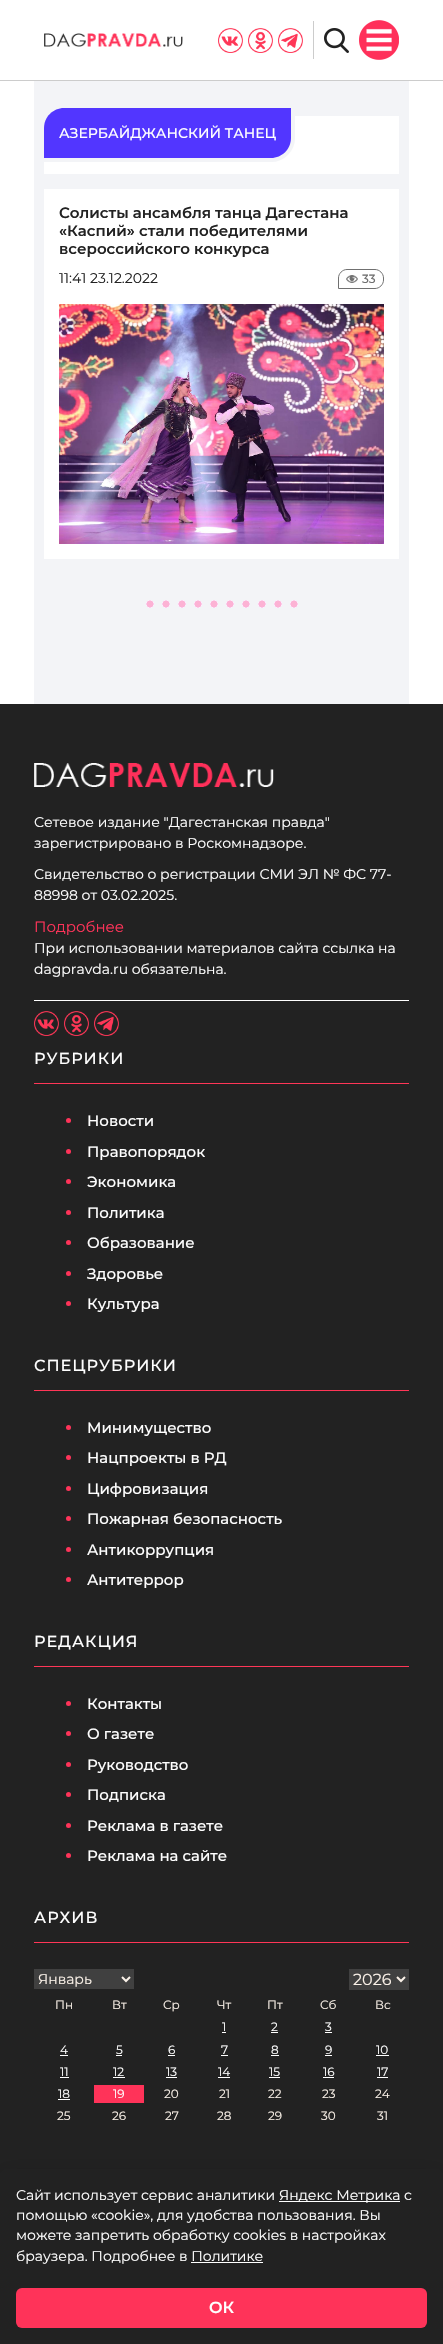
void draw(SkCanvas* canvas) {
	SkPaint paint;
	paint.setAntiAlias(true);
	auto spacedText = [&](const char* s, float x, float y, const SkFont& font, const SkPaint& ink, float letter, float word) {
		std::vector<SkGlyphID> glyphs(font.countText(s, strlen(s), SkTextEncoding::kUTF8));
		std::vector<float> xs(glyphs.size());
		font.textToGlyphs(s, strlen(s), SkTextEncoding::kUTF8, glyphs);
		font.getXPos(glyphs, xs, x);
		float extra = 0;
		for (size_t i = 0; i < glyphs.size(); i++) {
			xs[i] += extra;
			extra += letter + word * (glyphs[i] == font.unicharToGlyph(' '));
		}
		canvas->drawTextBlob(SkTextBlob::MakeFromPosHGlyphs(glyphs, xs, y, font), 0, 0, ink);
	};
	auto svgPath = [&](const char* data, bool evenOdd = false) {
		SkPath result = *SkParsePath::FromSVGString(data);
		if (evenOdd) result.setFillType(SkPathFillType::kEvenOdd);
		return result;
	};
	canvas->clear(0xffffffff);
	paint.setColor(0xffcccccc);
	canvas->drawRect(SkRect::MakeXYWH(0, 80, 443, 1), paint);
	canvas->drawImageRect(SkImages::DeferredFromEncodedData(SkData::MakeFromFileName("img1.png")), SkRect::MakeXYWH(44, 33, 139, 14), SkSamplingOptions());
	canvas->drawRect(SkRect::MakeXYWH(313, 21, 1, 38), paint);
	canvas->drawImageRect(SkImages::DeferredFromEncodedData(SkData::MakeFromFileName("img2.png")), SkRect::MakeXYWH(218, 28, 25, 25), SkSamplingOptions());
	canvas->drawImageRect(SkImages::DeferredFromEncodedData(SkData::MakeFromFileName("img3.png")), SkRect::MakeXYWH(248, 28, 25, 25), SkSamplingOptions());
	canvas->drawImageRect(SkImages::DeferredFromEncodedData(SkData::MakeFromFileName("img4.png")), SkRect::MakeXYWH(278, 28, 25, 25), SkSamplingOptions());
	canvas->drawImageRect(SkImages::DeferredFromEncodedData(SkData::MakeFromFileName("img5.png")), SkRect::MakeXYWH(324, 28, 25, 25), SkSamplingOptions());
	canvas->drawImageRect(SkImages::DeferredFromEncodedData(SkData::MakeFromFileName("img6.png")), SkRect::MakeXYWH(359, 20, 40, 40), SkSamplingOptions());
	paint.setColor(0xfff3f4f7);
	canvas->drawRect(SkRect::MakeXYWH(34, 81, 375, 623), paint);
	paint.setColor(0xffffffff);
	canvas->drawRect(SkRect::MakeXYWH(44, 116, 355, 58), paint);
	paint.setStroke(true);
	paint.setStrokeWidth(4);
	paint.setColor(0xfff3f4f7);
	canvas->drawPath(svgPath("M64 106H293V138C293 150 283 160 271 160H42V128C42 116 52 106 64 106Z"), paint);
	paint.setStroke(false);
	paint.setColor(0xff5236ff);
	canvas->drawPath(svgPath("M64 108H291V138C291 149 282 158 271 158H44V128C44 117 53 108 64 108Z"), paint);
	SkFont f1(fontMgr->matchFamilyStyle("Montserrat", SkFontStyle(500, SkFontStyle::kNormal_Width, SkFontStyle::kUpright_Slant)), 14);
	f1.setSubpixel(true);
	paint.setColor(0xffffffff);
	canvas->drawString("АЗЕРБАЙДЖАНСКИЙ ТАНЕЦ", 59, 138, f1, paint);
	canvas->drawRect(SkRect::MakeXYWH(44, 189, 355, 370), paint);
	SkFont f2(fontMgr->matchFamilyStyle("Montserrat", SkFontStyle(600, SkFontStyle::kNormal_Width, SkFontStyle::kUpright_Slant)), 15);
	f2.setSubpixel(true);
	paint.setColor(0xff222222);
	canvas->drawString("Солисты ансамбля танца Дагестана", 59, 218, f2, paint);
	canvas->drawString("«Каспий» стали победителями", 59, 236, f2, paint);
	canvas->drawString("всероссийского конкурса", 59, 254, f2, paint);
	SkFont f3(fontMgr->matchFamilyStyle("Montserrat", SkFontStyle::Normal()), 14);
	f3.setSubpixel(true);
	canvas->drawString("11:41 23.12.2022", 59, 283, f3, paint);
	paint.setStroke(true);
	paint.setStrokeWidth(1);
	paint.setColor(0xff707070);
	canvas->drawPath(svgPath("M347 269.5H375C379.5 269.5 383.5 273.5 383.5 278V280C383.5 284.5 379.5 288.5 375 288.5H338.5V278C338.5 273.5 342.5 269.5 347 269.5Z"), paint);
	canvas->drawImageRect(SkImages::DeferredFromEncodedData(SkData::MakeFromFileName("img7.png")), SkRect::MakeXYWH(346, 275, 12, 8), SkSamplingOptions());
	SkFont f4(fontMgr->matchFamilyStyle("Montserrat", SkFontStyle(500, SkFontStyle::kNormal_Width, SkFontStyle::kUpright_Slant)), 12);
	f4.setSubpixel(true);
	paint.setStroke(false);
	canvas->drawString("33", 362, 283, f4, paint);
	canvas->drawImageRect(SkImages::DeferredFromEncodedData(SkData::MakeFromFileName("img8.png")), SkRect::MakeXYWH(59, 304, 325, 240), SkSamplingOptions());
	canvas->drawImageRect(SkImages::DeferredFromEncodedData(SkData::MakeFromFileName("img9.png")), SkRect::MakeXYWH(146, 600, 152, 8), SkSamplingOptions());
	paint.setColor(0xff222222);
	canvas->drawRect(SkRect::MakeXYWH(0, 704, 443, 1473), paint);
	canvas->drawImageRect(SkImages::DeferredFromEncodedData(SkData::MakeFromFileName("img10.png")), SkRect::MakeXYWH(34, 763, 240, 24), SkSamplingOptions());
	paint.setColor(0xffffffff);
	canvas->drawString("Сетевое издание \"Дагестанская правда\"", 34, 827, f3, paint);
	canvas->drawString("зарегистрировано в Роскомнадзоре.", 34, 848, f3, paint);
	canvas->drawString("Свидетельство о регистрации СМИ ЭЛ № ФС 77-", 34, 879, f3, paint);
	canvas->drawString("88998 от 03.02.2025.", 34, 900, f3, paint);
	SkFont f5(fontMgr->matchFamilyStyle("Montserrat", SkFontStyle::Normal()), 15);
	f5.setSubpixel(true);
	paint.setColor(0xffff3359);
	canvas->drawString("Подробнее", 34, 932, f5, paint);
	paint.setColor(0xffffffff);
	canvas->drawString("При использовании материалов сайта ссылка на", 34, 953, f3, paint);
	canvas->drawString("dagpravda.ru обязательна.", 34, 974, f3, paint);
	canvas->drawRect(SkRect::MakeXYWH(34, 1000, 375, 1), paint);
	canvas->drawImageRect(SkImages::DeferredFromEncodedData(SkData::MakeFromFileName("img11.png")), SkRect::MakeXYWH(34, 1011, 25, 25), SkSamplingOptions());
	canvas->drawImageRect(SkImages::DeferredFromEncodedData(SkData::MakeFromFileName("img12.png")), SkRect::MakeXYWH(64, 1011, 25, 25), SkSamplingOptions());
	canvas->drawImageRect(SkImages::DeferredFromEncodedData(SkData::MakeFromFileName("img13.png")), SkRect::MakeXYWH(94, 1011, 25, 25), SkSamplingOptions());
	SkFont f6(fontMgr->matchFamilyStyle("Montserrat", SkFontStyle(500, SkFontStyle::kNormal_Width, SkFontStyle::kUpright_Slant)), 16);
	f6.setSubpixel(true);
	spacedText("РУБРИКИ", 34, 1064, f6, paint, 1, 0);
	paint.setColor(0xffff3657);
	canvas->drawRect(SkRect::MakeXYWH(34, 1083, 375, 1), paint);
	paint.setColor(0xffff3359);
	canvas->drawCircle(68.5, 1120.5, 2.5, paint);
	SkFont f7(fontMgr->matchFamilyStyle("Montserrat", SkFontStyle(500, SkFontStyle::kNormal_Width, SkFontStyle::kUpright_Slant)), 15);
	f7.setSubpixel(true);
	paint.setColor(0xffffffff);
	canvas->drawString("Новости", 87, 1126, f7, paint);
	paint.setColor(0xffff3359);
	canvas->drawCircle(68.5, 1151.5, 2.5, paint);
	paint.setColor(0xffffffff);
	canvas->drawString("Правопорядок", 87, 1157, f7, paint);
	paint.setColor(0xffff3359);
	canvas->drawCircle(68.5, 1181.5, 2.5, paint);
	paint.setColor(0xffffffff);
	canvas->drawString("Экономика", 87, 1187, f7, paint);
	paint.setColor(0xffff3359);
	canvas->drawCircle(68.5, 1212.5, 2.5, paint);
	paint.setColor(0xffffffff);
	canvas->drawString("Политика", 87, 1218, f7, paint);
	paint.setColor(0xffff3359);
	canvas->drawCircle(68.5, 1242.5, 2.5, paint);
	paint.setColor(0xffffffff);
	canvas->drawString("Образование", 87, 1248, f7, paint);
	paint.setColor(0xffff3359);
	canvas->drawCircle(68.5, 1273.5, 2.5, paint);
	paint.setColor(0xffffffff);
	canvas->drawString("Здоровье", 87, 1279, f7, paint);
	paint.setColor(0xffff3359);
	canvas->drawCircle(68.5, 1303.5, 2.5, paint);
	paint.setColor(0xffffffff);
	canvas->drawString("Культура", 87, 1309, f7, paint);
	spacedText("СПЕЦРУБРИКИ", 34, 1371, f6, paint, 1, 0);
	paint.setColor(0xffff3657);
	canvas->drawRect(SkRect::MakeXYWH(34, 1390, 375, 1), paint);
	paint.setColor(0xffff3359);
	canvas->drawCircle(68.5, 1427.5, 2.5, paint);
	paint.setColor(0xffffffff);
	canvas->drawString("Минимущество", 87, 1433, f7, paint);
	paint.setColor(0xffff3359);
	canvas->drawCircle(68.5, 1457.5, 2.5, paint);
	paint.setColor(0xffffffff);
	canvas->drawString("Нацпроекты в РД", 87, 1463, f7, paint);
	paint.setColor(0xffff3359);
	canvas->drawCircle(68.5, 1488.5, 2.5, paint);
	paint.setColor(0xffffffff);
	canvas->drawString("Цифровизация", 87, 1494, f7, paint);
	paint.setColor(0xffff3359);
	canvas->drawCircle(68.5, 1518.5, 2.5, paint);
	paint.setColor(0xffffffff);
	canvas->drawString("Пожарная безопасность", 87, 1524, f7, paint);
	paint.setColor(0xffff3359);
	canvas->drawCircle(68.5, 1549.5, 2.5, paint);
	paint.setColor(0xffffffff);
	canvas->drawString("Антикоррупция", 87, 1555, f7, paint);
	paint.setColor(0xffff3359);
	canvas->drawCircle(68.5, 1579.5, 2.5, paint);
	paint.setColor(0xffffffff);
	canvas->drawString("Антитеррор", 87, 1585, f7, paint);
	spacedText("РЕДАКЦИЯ", 34, 1647, f6, paint, 1, 0);
	paint.setColor(0xffff3657);
	canvas->drawRect(SkRect::MakeXYWH(34, 1666, 375, 1), paint);
	paint.setColor(0xffff3359);
	canvas->drawCircle(68.5, 1703.5, 2.5, paint);
	paint.setColor(0xffffffff);
	canvas->drawString("Контакты", 87, 1709, f7, paint);
	paint.setColor(0xffff3359);
	canvas->drawCircle(68.5, 1733.5, 2.5, paint);
	paint.setColor(0xffffffff);
	canvas->drawString("О газете", 87, 1739, f7, paint);
	paint.setColor(0xffff3359);
	canvas->drawCircle(68.5, 1764.5, 2.5, paint);
	paint.setColor(0xffffffff);
	canvas->drawString("Руководство", 87, 1770, f7, paint);
	paint.setColor(0xffff3359);
	canvas->drawCircle(68.5, 1794.5, 2.5, paint);
	paint.setColor(0xffffffff);
	canvas->drawString("Подписка", 87, 1800, f7, paint);
	paint.setColor(0xffff3359);
	canvas->drawCircle(68.5, 1825.5, 2.5, paint);
	paint.setColor(0xffffffff);
	canvas->drawString("Реклама в газете", 87, 1831, f7, paint);
	paint.setColor(0xffff3359);
	canvas->drawCircle(68.5, 1855.5, 2.5, paint);
	paint.setColor(0xffffffff);
	canvas->drawString("Реклама на сайте", 87, 1861, f7, paint);
	spacedText("АРХИВ", 34, 1923, f6, paint, 1, 0);
	paint.setColor(0xffff3657);
	canvas->drawRect(SkRect::MakeXYWH(34, 1942, 375, 1), paint);
	paint.setColor(0xff404040);
	canvas->drawRect(SkRect::MakeXYWH(34, 1969, 100, 20), paint);
	paint.setStroke(true);
	paint.setStrokeWidth(2);
	paint.setColor(0xfffaf1e8);
	canvas->drawPath(svgPath("M122 1977L126 1981L130 1977"), paint);
	paint.setStroke(false);
	canvas->drawString("Январь", 38, 1984, f3, paint);
	paint.setColor(0xff404040);
	canvas->drawRect(SkRect::MakeXYWH(349, 1969, 60, 21), paint);
	paint.setStroke(true);
	paint.setColor(0xfffaf1e8);
	canvas->drawPath(svgPath("M397 1977L401 1981L405 1977"), paint);
	SkFont f8(fontMgr->matchFamilyStyle("Montserrat", SkFontStyle::Normal()), 16);
	f8.setSubpixel(true);
	paint.setStroke(false);
	canvas->drawString("2026", 353, 1985, f8, paint);
	SkFont f9(fontMgr->matchFamilyStyle("Montserrat", SkFontStyle::Normal()), 12);
	f9.setSubpixel(true);
	canvas->drawString("Пн", 55, 2009, f9, paint);
	canvas->drawString("Вт", 112, 2009, f9, paint);
	canvas->drawString("Ср", 163, 2009, f9, paint);
	canvas->drawString("Чт", 217, 2009, f9, paint);
	canvas->drawString("Пт", 267, 2009, f9, paint);
	canvas->drawString("Сб", 320, 2009, f9, paint);
	canvas->drawString("Вс", 375, 2009, f9, paint);
	paint.setColor(0xffffffff);
	canvas->drawString("1", 222, 2031, f9, paint);
	canvas->drawRect(SkRect::MakeXYWH(222, 2032, 4, 1), paint);
	canvas->drawString("2", 271, 2031, f9, paint);
	canvas->drawRect(SkRect::MakeXYWH(271, 2032, 7, 1), paint);
	canvas->drawString("3", 325, 2031, f9, paint);
	canvas->drawRect(SkRect::MakeXYWH(325, 2032, 7, 1), paint);
	canvas->drawString("4", 60, 2054, f9, paint);
	canvas->drawRect(SkRect::MakeXYWH(60, 2055, 8, 1), paint);
	canvas->drawString("5", 116, 2054, f9, paint);
	canvas->drawRect(SkRect::MakeXYWH(116, 2055, 6, 1), paint);
	canvas->drawString("6", 168, 2054, f9, paint);
	canvas->drawRect(SkRect::MakeXYWH(168, 2055, 7, 1), paint);
	canvas->drawString("7", 221, 2054, f9, paint);
	canvas->drawRect(SkRect::MakeXYWH(221, 2055, 7, 1), paint);
	canvas->drawString("8", 271, 2054, f9, paint);
	canvas->drawRect(SkRect::MakeXYWH(271, 2055, 8, 1), paint);
	canvas->drawString("9", 325, 2054, f9, paint);
	canvas->drawRect(SkRect::MakeXYWH(325, 2055, 7, 1), paint);
	canvas->drawString("10", 376, 2054, f9, paint);
	canvas->drawRect(SkRect::MakeXYWH(376, 2055, 13, 1), paint);
	canvas->drawString("11", 60, 2076, f9, paint);
	canvas->drawRect(SkRect::MakeXYWH(60, 2077, 9, 1), paint);
	canvas->drawString("12", 113, 2076, f9, paint);
	canvas->drawRect(SkRect::MakeXYWH(113, 2077, 12, 1), paint);
	canvas->drawString("13", 166, 2076, f9, paint);
	canvas->drawRect(SkRect::MakeXYWH(166, 2077, 11, 1), paint);
	canvas->drawString("14", 218, 2076, f9, paint);
	canvas->drawRect(SkRect::MakeXYWH(218, 2077, 12, 1), paint);
	canvas->drawString("15", 269, 2076, f9, paint);
	canvas->drawRect(SkRect::MakeXYWH(269, 2077, 11, 1), paint);
	canvas->drawString("16", 323, 2076, f9, paint);
	canvas->drawRect(SkRect::MakeXYWH(323, 2077, 11, 1), paint);
	canvas->drawString("17", 377, 2076, f9, paint);
	canvas->drawRect(SkRect::MakeXYWH(377, 2077, 11, 1), paint);
	canvas->drawString("18", 58, 2098, f9, paint);
	canvas->drawRect(SkRect::MakeXYWH(58, 2099, 12, 1), paint);
	paint.setColor(0xffff3359);
	canvas->drawRect(SkRect::MakeXYWH(94, 2085, 50, 18), paint);
	paint.setColor(0xffffffff);
	canvas->drawString("19", 113, 2098, f9, paint);
	paint.setColor(0xfffaf1e8);
	canvas->drawString("20", 164, 2098, f9, paint);
	canvas->drawString("21", 219, 2098, f9, paint);
	canvas->drawString("22", 268, 2098, f9, paint);
	canvas->drawString("23", 322, 2098, f9, paint);
	canvas->drawString("24", 375, 2098, f9, paint);
	canvas->drawString("25", 57, 2120, f9, paint);
	canvas->drawString("26", 112, 2120, f9, paint);
	canvas->drawString("27", 165, 2120, f9, paint);
	canvas->drawString("28", 217, 2120, f9, paint);
	canvas->drawString("29", 268, 2120, f9, paint);
	canvas->drawString("30", 321, 2120, f9, paint);
	canvas->drawString("31", 377, 2120, f9, paint);
	paint.setColor(0x33000000);
	paint.setMaskFilter(SkMaskFilter::MakeBlur(kNormal_SkBlurStyle, 12));
	canvas->drawRoundRect(SkRect::MakeXYWH(0, 2177, 443, 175), 8, 8, paint);
	paint.setMaskFilter(nullptr);
	paint.setColor(0xff222222);
	canvas->drawPath(svgPath("M8 2169H435C439.5 2169 443 2172.5 443 2177V2344H0V2177C0 2172.5 3.5 2169 8 2169Z"), paint);
	paint.setColor(0xffffffff);
	canvas->drawString("Сайт использует сервис аналитики", 16, 2200, f3, paint);
	canvas->drawRect(SkRect::MakeXYWH(279, 2201, 121, 1), paint);
	canvas->drawString("Яндекс Метрика с", 279, 2200, f3, paint);
	canvas->drawString("помощью «cookie», для удобства пользования. Вы", 16, 2220, f3, paint);
	canvas->drawString("можете запретить обработку cookies в настройках", 16, 2240, f3, paint);
	canvas->drawString("браузера. Подробнее в Политике", 16, 2261, f3, paint);
	canvas->drawRect(SkRect::MakeXYWH(191, 2262, 72, 1), paint);
	paint.setColor(0xffff3359);
	canvas->drawRoundRect(SkRect::MakeXYWH(16, 2288, 411, 40), 6, 6, paint);
	SkFont f10(fontMgr->matchFamilyStyle("Montserrat", SkFontStyle(600, SkFontStyle::kNormal_Width, SkFontStyle::kUpright_Slant)), 16);
	f10.setSubpixel(true);
	paint.setColor(0xffffffff);
	canvas->drawString("ОК", 209, 2313, f10, paint);
}
